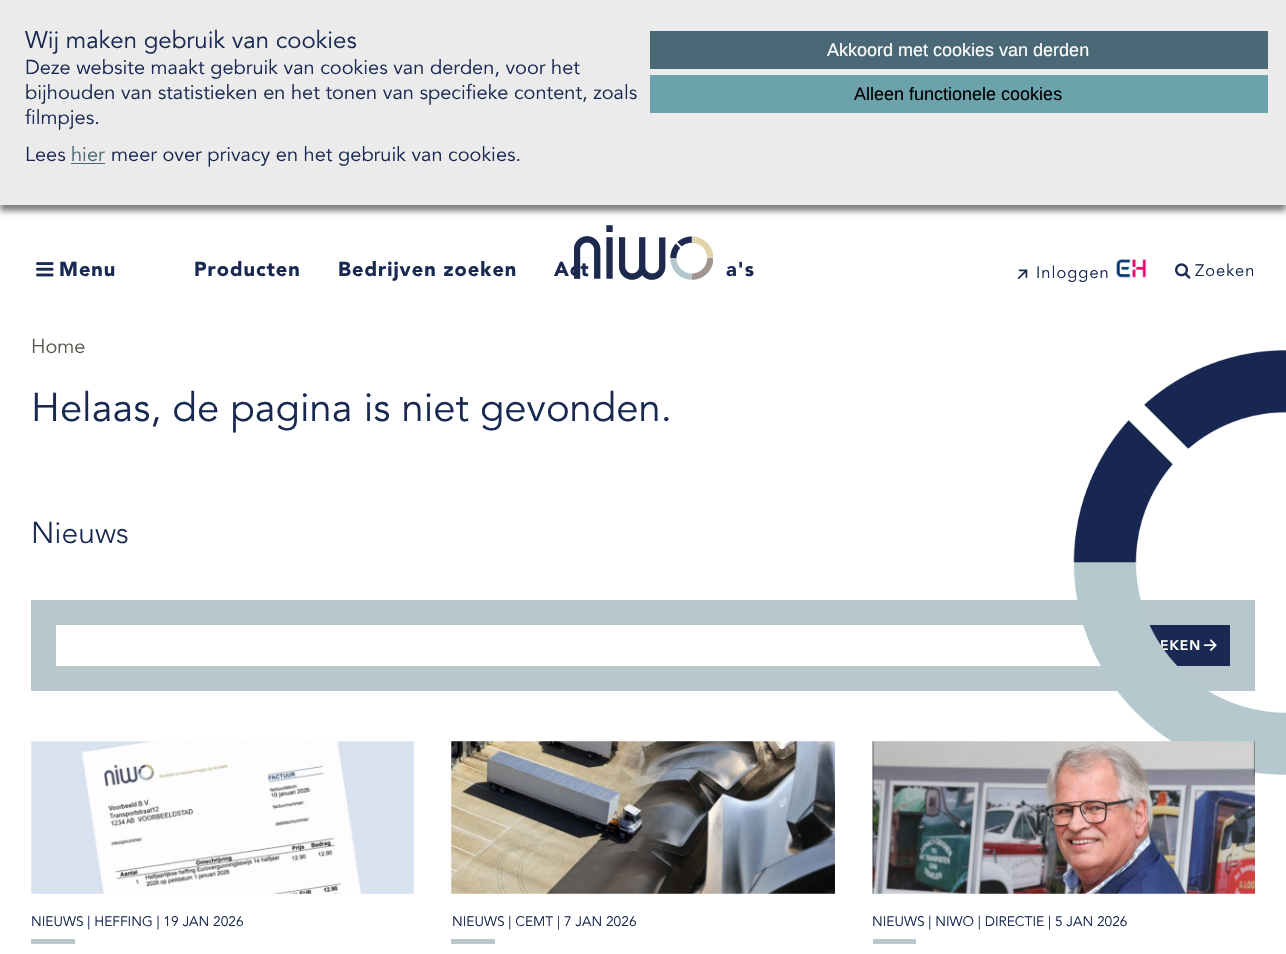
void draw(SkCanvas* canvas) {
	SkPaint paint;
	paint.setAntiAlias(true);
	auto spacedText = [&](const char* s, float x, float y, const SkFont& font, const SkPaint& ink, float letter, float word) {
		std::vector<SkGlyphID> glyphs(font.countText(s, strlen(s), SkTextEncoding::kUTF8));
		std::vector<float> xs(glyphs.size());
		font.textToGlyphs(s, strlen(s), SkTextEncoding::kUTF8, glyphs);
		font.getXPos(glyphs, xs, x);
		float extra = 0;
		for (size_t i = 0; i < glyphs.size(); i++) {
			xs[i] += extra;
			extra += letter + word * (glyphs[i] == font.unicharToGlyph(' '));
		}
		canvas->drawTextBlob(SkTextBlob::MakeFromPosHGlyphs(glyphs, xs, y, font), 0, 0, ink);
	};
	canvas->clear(0xffffffff);
	paint.setColor(0x80000000);
	paint.setMaskFilter(SkMaskFilter::MakeBlur(kNormal_SkBlurStyle, 3));
	canvas->drawRect(SkRect::MakeXYWH(0, 6, 1286, 205), paint);
	paint.setMaskFilter(nullptr);
	paint.setColor(0xffecebeb);
	canvas->drawRect(SkRect::MakeXYWH(0, 0, 1286, 205), paint);
	SkFont f1(fontMgr->matchFamilyStyle("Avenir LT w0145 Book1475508", SkFontStyle::Normal()), 24);
	f1.setSubpixel(true);
	paint.setColor(0xff192952);
	canvas->drawString("Wij maken gebruik van cookies", 25, 48, f1, paint);
	SkFont f2(fontMgr->matchFamilyStyle("Avenir LT w0145 Book1475508", SkFontStyle::Normal()), 20);
	f2.setSubpixel(true);
	canvas->drawString("Deze website maakt gebruik van cookies van derden, voor het", 25, 74, f2, paint);
	canvas->drawString("bijhouden van statistieken en het tonen van specifieke content, zoals", 25, 99, f2, paint);
	canvas->drawString("filmpjes.", 25, 124, f2, paint);
	canvas->drawString("Lees", 25, 161, f2, paint);
	paint.setColor(0xff4a6876);
	canvas->drawString("hier", 71, 161, f2, paint);
	canvas->drawRect(SkRect::MakeXYWH(71, 163, 34, 1), paint);
	paint.setColor(0xff192952);
	canvas->drawString("meer over privacy en het gebruik van cookies.", 111, 161, f2, paint);
	paint.setColor(0xff4a6876);
	canvas->drawRect(SkRect::MakeXYWH(650, 31, 618, 38), paint);
	SkFont f3(fontMgr->matchFamilyStyle("Liberation Sans", SkFontStyle::Normal()), 18);
	f3.setSubpixel(true);
	paint.setColor(0xffffffff);
	canvas->drawString("Akkoord met cookies van derden", 827, 56, f3, paint);
	paint.setColor(0xff6ca2ab);
	canvas->drawRect(SkRect::MakeXYWH(650, 75, 618, 38), paint);
	paint.setColor(0xff000000);
	canvas->drawString("Alleen functionele cookies", 854, 100, f3, paint);
	SkFont f4(fontMgr->matchFamilyStyle("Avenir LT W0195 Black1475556", SkFontStyle(900, SkFontStyle::kNormal_Width, SkFontStyle::kUpright_Slant)), 20);
	f4.setSubpixel(true);
	paint.setColor(0xff192952);
	spacedText("Act", 554, 276, f4, paint, 1, 0);
	canvas->drawImageRect(SkImages::DeferredFromEncodedData(SkData::MakeFromFileName("img1.png")), SkRect::MakeXYWH(574, 225, 139, 55), SkSamplingOptions());
	canvas->drawImageRect(SkImages::DeferredFromEncodedData(SkData::MakeFromFileName("img2.png")), SkRect::MakeXYWH(36, 262, 18, 15), SkSamplingOptions());
	spacedText("Menu", 59, 276, f4, paint, 1, 0);
	spacedText("Producten", 194, 276, f4, paint, 1, 0);
	spacedText("Bedrijven zoeken", 338, 276, f4, paint, 1, 0);
	spacedText("a's", 726, 276, f4, paint, 1, 0);
	canvas->drawImageRect(SkImages::DeferredFromEncodedData(SkData::MakeFromFileName("img3.png")), SkRect::MakeXYWH(1017, 269, 11, 10), SkSamplingOptions());
	SkFont f5(fontMgr->matchFamilyStyle("Avenir LT w0145 Book1475508", SkFontStyle::Normal()), 16.5);
	f5.setSubpixel(true);
	spacedText("Inloggen", 1036, 278, f5, paint, 1, 0);
	canvas->drawImageRect(SkImages::DeferredFromEncodedData(SkData::MakeFromFileName("img4.png")), SkRect::MakeXYWH(1116, 258, 31, 20), SkSamplingOptions());
	canvas->drawImageRect(SkImages::DeferredFromEncodedData(SkData::MakeFromFileName("img5.png")), SkRect::MakeXYWH(1175, 263, 16, 16), SkSamplingOptions());
	spacedText("Zoeken", 1195, 276, f5, paint, 1, 0);
	paint.setColor(0xff5d5751);
	canvas->drawString("Home", 31, 353, f2, paint);
	SkFont f6(fontMgr->matchFamilyStyle("Avenir LT w0145 Book1475508", SkFontStyle::Normal()), 40);
	f6.setSubpixel(true);
	paint.setColor(0xff192952);
	canvas->drawString("Helaas, de pagina is niet gevonden.", 31, 421, f6, paint);
	SkFont f7(fontMgr->matchFamilyStyle("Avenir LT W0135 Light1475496", SkFontStyle(300, SkFontStyle::kNormal_Width, SkFontStyle::kUpright_Slant)), 30);
	f7.setSubpixel(true);
	canvas->drawString("Nieuws", 31, 543, f7, paint);
	canvas->drawImageRect(SkImages::DeferredFromEncodedData(SkData::MakeFromFileName("img6.png")), SkRect::MakeXYWH(1073, 350, 213, 213), SkSamplingOptions());
	paint.setColor(0xffb8c7cb);
	canvas->drawRect(SkRect::MakeXYWH(31, 600, 1224, 91), paint);
	paint.setColor(0xffffffff);
	canvas->drawRect(SkRect::MakeXYWH(56, 625, 1046, 41), paint);
	paint.setColor(0xff192952);
	canvas->drawRect(SkRect::MakeXYWH(1149, 625, 81, 41), paint);
	SkFont f8(fontMgr->matchFamilyStyle("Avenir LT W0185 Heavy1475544", SkFontStyle(900, SkFontStyle::kNormal_Width, SkFontStyle::kUpright_Slant)), 13.75);
	f8.setSubpixel(true);
	paint.setColor(0xffffffff);
	spacedText("EKEN", 1160, 650, f8, paint, 1, 0);
	canvas->drawImageRect(SkImages::DeferredFromEncodedData(SkData::MakeFromFileName("img8.png")), SkRect::MakeXYWH(1203, 639, 14, 12), SkSamplingOptions());
	canvas->drawImageRect(SkImages::DeferredFromEncodedData(SkData::MakeFromFileName("img7.png")), SkRect::MakeXYWH(1073, 562, 213, 213), SkSamplingOptions());
	canvas->drawImageRect(SkImages::DeferredFromEncodedData(SkData::MakeFromFileName("img9.png")), SkRect::MakeXYWH(31, 741, 383, 153), SkSamplingOptions());
	SkFont f9(fontMgr->matchFamilyStyle("Avenir LT w0145 Book1475508", SkFontStyle::Normal()), 13.75);
	f9.setSubpixel(true);
	paint.setColor(0xff192952);
	canvas->drawString("NIEUWS | HEFFING | 19 JAN 2026", 31, 926, f9, paint);
	paint.setColor(0xffb8c7cb);
	canvas->drawRect(SkRect::MakeXYWH(31, 939, 44, 5), paint);
	canvas->drawImageRect(SkImages::DeferredFromEncodedData(SkData::MakeFromFileName("img10.png")), SkRect::MakeXYWH(451, 741, 384, 153), SkSamplingOptions());
	paint.setColor(0xff192952);
	canvas->drawString("NIEUWS | CEMT | 7 JAN 2026", 452, 926, f9, paint);
	paint.setColor(0xffb8c7cb);
	canvas->drawRect(SkRect::MakeXYWH(451, 939, 44, 5), paint);
	canvas->drawImageRect(SkImages::DeferredFromEncodedData(SkData::MakeFromFileName("img11.png")), SkRect::MakeXYWH(872, 741, 383, 153), SkSamplingOptions());
	paint.setColor(0xff192952);
	canvas->drawString("NIEUWS | NIWO | DIRECTIE | 5 JAN 2026", 872, 926, f9, paint);
	paint.setColor(0xffb8c7cb);
	canvas->drawRect(SkRect::MakeXYWH(873, 939, 43, 5), paint);
}
